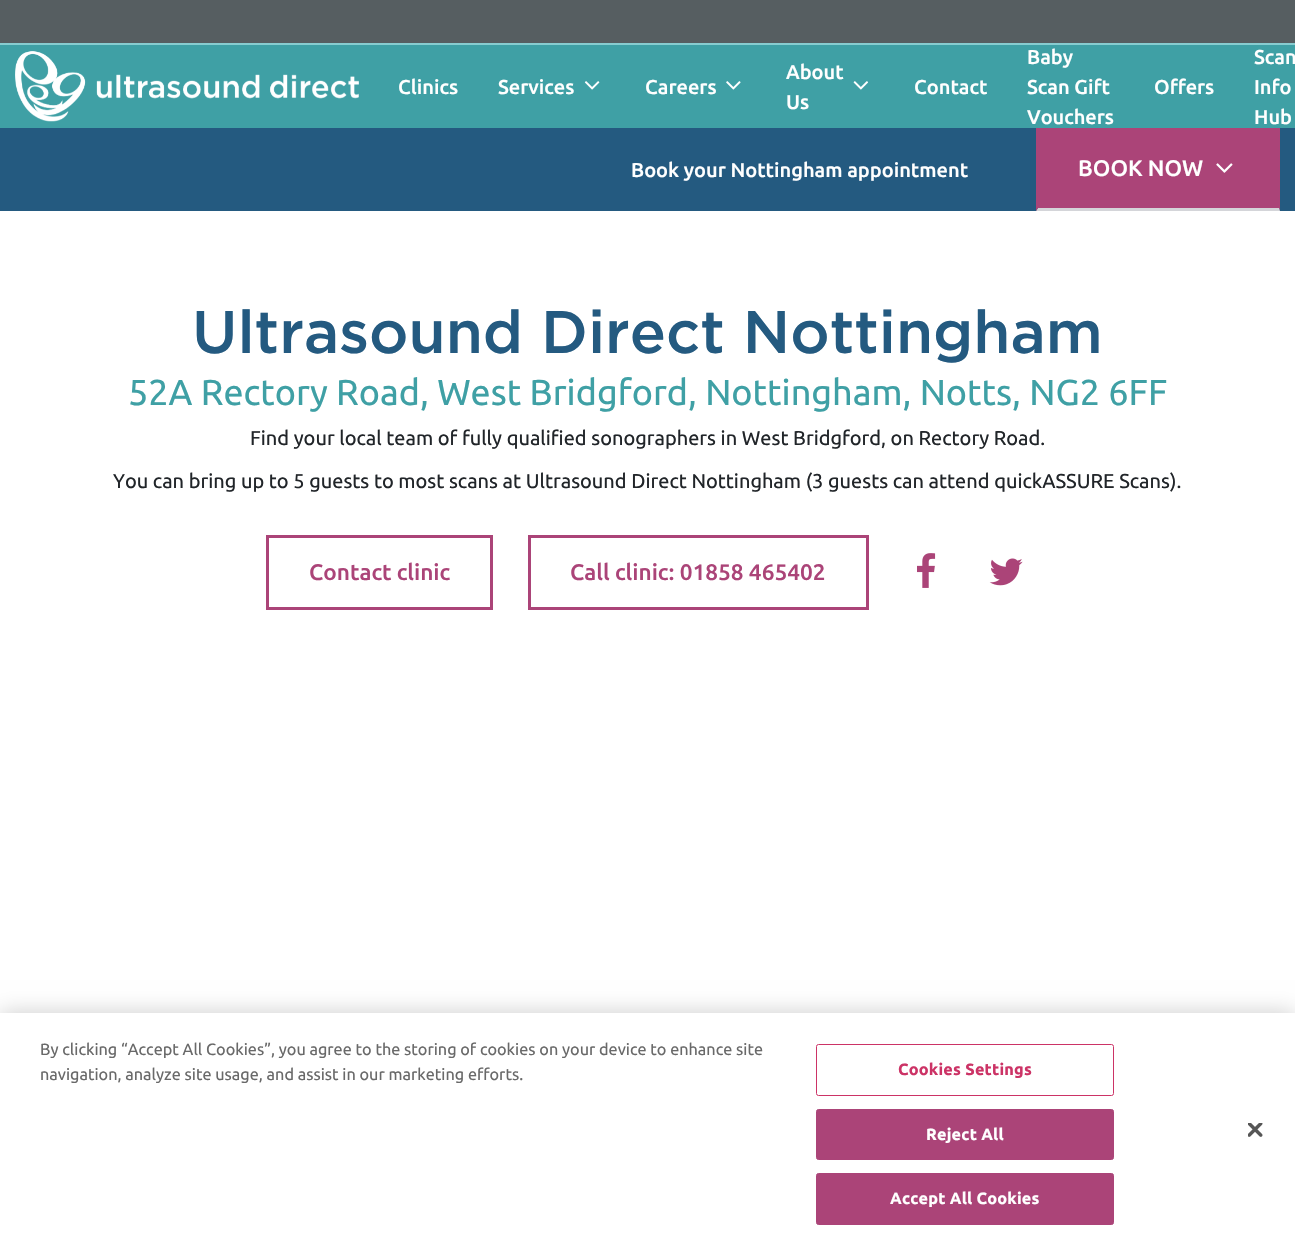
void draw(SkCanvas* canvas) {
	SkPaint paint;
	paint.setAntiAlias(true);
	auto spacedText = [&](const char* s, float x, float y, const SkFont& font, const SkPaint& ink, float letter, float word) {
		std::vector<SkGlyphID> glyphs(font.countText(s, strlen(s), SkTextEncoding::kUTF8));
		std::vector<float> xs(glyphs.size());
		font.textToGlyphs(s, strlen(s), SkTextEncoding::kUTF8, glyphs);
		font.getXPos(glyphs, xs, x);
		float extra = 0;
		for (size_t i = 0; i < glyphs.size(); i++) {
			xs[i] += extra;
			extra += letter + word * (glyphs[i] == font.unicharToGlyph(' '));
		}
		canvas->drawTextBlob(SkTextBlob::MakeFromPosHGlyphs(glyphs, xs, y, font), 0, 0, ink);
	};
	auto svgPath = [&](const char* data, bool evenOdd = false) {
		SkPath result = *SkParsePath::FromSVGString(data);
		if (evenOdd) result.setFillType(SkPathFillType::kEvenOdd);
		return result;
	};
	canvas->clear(0xffffffff);
	paint.setColor(0xff565e61);
	canvas->drawRect(SkRect::MakeXYWH(0, 0, 1295, 43), paint);
	paint.setColor(0xff87ccd0);
	canvas->drawRect(SkRect::MakeXYWH(0, 43, 1295, 2), paint);
	paint.setColor(0xff3fa0a5);
	canvas->drawRect(SkRect::MakeXYWH(0, 45, 1295, 83), paint);
	canvas->drawImageRect(SkImages::DeferredFromEncodedData(SkData::MakeFromFileName("img1.png")), SkRect::MakeXYWH(15, 51, 344, 71), SkSamplingOptions());
	SkFont f1(fontMgr->matchFamilyStyle("Ubuntu", SkFontStyle(500, SkFontStyle::kNormal_Width, SkFontStyle::kUpright_Slant)), 20);
	f1.setSubpixel(true);
	paint.setColor(0xffffffff);
	canvas->drawString("Clinics", 398, 94, f1, paint);
	canvas->drawString("Services", 498, 94, f1, paint);
	canvas->drawImageRect(SkImages::DeferredFromEncodedData(SkData::MakeFromFileName("img2.png")), SkRect::MakeXYWH(584, 81, 16, 9), SkSamplingOptions());
	canvas->drawString("Careers", 645, 94, f1, paint);
	canvas->drawImageRect(SkImages::DeferredFromEncodedData(SkData::MakeFromFileName("img3.png")), SkRect::MakeXYWH(726, 81, 15, 9), SkSamplingOptions());
	canvas->drawString("About", 786, 79, f1, paint);
	canvas->drawImageRect(SkImages::DeferredFromEncodedData(SkData::MakeFromFileName("img4.png")), SkRect::MakeXYWH(853, 81, 16, 9), SkSamplingOptions());
	canvas->drawString("Us", 786, 109, f1, paint);
	canvas->drawString("Contact", 914, 94, f1, paint);
	canvas->drawString("Baby", 1027, 64, f1, paint);
	canvas->drawString("Scan Gift", 1027, 94, f1, paint);
	canvas->drawString("Vouchers", 1027, 124, f1, paint);
	canvas->drawString("Offers", 1154, 94, f1, paint);
	canvas->drawString("Scan", 1254, 64, f1, paint);
	canvas->drawString("Info", 1254, 94, f1, paint);
	canvas->drawString("Hub", 1254, 124, f1, paint);
	paint.setColor(0xff245a80);
	canvas->drawRect(SkRect::MakeXYWH(0, 128, 1295, 83), paint);
	paint.setColor(0xffffffff);
	canvas->drawString("Book your Nottingham appointment", 631, 177, f1, paint);
	paint.setColor(0xffab4478);
	canvas->drawRect(SkRect::MakeXYWH(1038, 129, 241, 79), paint);
	canvas->drawRect(SkRect::MakeXYWH(1036, 128, 244, 1), paint);
	canvas->drawPath(svgPath("M1280 128V211L1279 208V129Z"), paint);
	paint.setColor(0xffd4d5d9);
	canvas->drawPath(svgPath("M1280 211H1036L1038 208H1279Z"), paint);
	paint.setColor(0xffab4478);
	canvas->drawPath(svgPath("M1036 211V128L1038 129V208Z"), paint);
	SkFont f2(fontMgr->matchFamilyStyle("Ubuntu", SkFontStyle(500, SkFontStyle::kNormal_Width, SkFontStyle::kUpright_Slant)), 22.5);
	f2.setSubpixel(true);
	paint.setColor(0xffffffff);
	canvas->drawString("BOOK NOW", 1078, 176, f2, paint);
	canvas->drawImageRect(SkImages::DeferredFromEncodedData(SkData::MakeFromFileName("img5.png")), SkRect::MakeXYWH(1216, 163, 17, 10), SkSamplingOptions());
	SkFont f3(fontMgr->matchFamilyStyle("Gotham", SkFontStyle(500, SkFontStyle::kNormal_Width, SkFontStyle::kUpright_Slant)), 60);
	f3.setSubpixel(true);
	paint.setColor(0xff245a80);
	canvas->drawString("Ultrasound Direct Nottingham", 192, 353, f3, paint);
	SkFont f4(fontMgr->matchFamilyStyle("Ubuntu", SkFontStyle::Normal()), 36);
	f4.setSubpixel(true);
	paint.setColor(0xff3fa0a5);
	canvas->drawString("52A Rectory Road, West Bridgford, Nottingham, Notts, NG2 6FF", 128, 405, f4, paint);
	SkFont f5(fontMgr->matchFamilyStyle("Ubuntu", SkFontStyle::Normal()), 20);
	f5.setSubpixel(true);
	paint.setColor(0xff212529);
	canvas->drawString("Find your local team of fully qualified sonographers in West Bridgford, on Rectory Road.", 250, 445, f5, paint);
	canvas->drawString("You can bring up to 5 guests to most scans at Ultrasound Direct Nottingham (3 guests can attend quickASSURE Scans).", 113, 488, f5, paint);
	paint.setStroke(true);
	paint.setStrokeWidth(3);
	paint.setColor(0xffab4478);
	canvas->drawRect(SkRect::MakeXYWH(267.5, 536.5, 224, 72), paint);
	paint.setStroke(false);
	canvas->drawString("Contact clinic", 309, 580, f2, paint);
	paint.setStroke(true);
	canvas->drawRect(SkRect::MakeXYWH(529.5, 536.5, 338, 72), paint);
	paint.setStroke(false);
	canvas->drawString("Call clinic: 01858 465402", 570, 580, f2, paint);
	canvas->drawImageRect(SkImages::DeferredFromEncodedData(SkData::MakeFromFileName("img6.png")), SkRect::MakeXYWH(917, 553, 19, 35), SkSamplingOptions());
	canvas->drawImageRect(SkImages::DeferredFromEncodedData(SkData::MakeFromFileName("img7.png")), SkRect::MakeXYWH(989, 558, 34, 28), SkSamplingOptions());
	paint.setColor(0x33000000);
	paint.setMaskFilter(SkMaskFilter::MakeBlur(kNormal_SkBlurStyle, 11));
	canvas->drawRect(SkRect::MakeXYWH(0, 1013, 1295, 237), paint);
	paint.setMaskFilter(nullptr);
	paint.setColor(0xffffffff);
	canvas->drawRect(SkRect::MakeXYWH(0, 1013, 1295, 236), paint);
	SkFont f6(fontMgr->matchFamilyStyle("Ubuntu", SkFontStyle::Normal()), 16.25);
	f6.setSubpixel(true);
	paint.setColor(0xff696969);
	canvas->drawString("By clicking “Accept All Cookies”, you agree to the storing of cookies on your device to enhance site", 40, 1055, f6, paint);
	canvas->drawString("navigation, analyze site usage, and assist in our marketing efforts.", 40, 1080, f6, paint);
	paint.setStroke(true);
	paint.setStrokeWidth(1);
	paint.setColor(0xffcc3366);
	canvas->drawRoundRect(SkRect::MakeXYWH(816.5, 1044.5, 297, 51), 2, 2, paint);
	SkFont f7(fontMgr->matchFamilyStyle("Ubuntu", SkFontStyle::Bold()), 16.25);
	f7.setSubpixel(true);
	paint.setStroke(false);
	spacedText("Cookies Settings", 898, 1075, f7, paint, 0.2, 0);
	paint.setColor(0xffab4478);
	canvas->drawRoundRect(SkRect::MakeXYWH(816.5, 1109.5, 297, 50), 2, 2, paint);
	paint.setStroke(true);
	canvas->drawRoundRect(SkRect::MakeXYWH(816.5, 1109.5, 297, 50), 2, 2, paint);
	paint.setStroke(false);
	paint.setColor(0xffffffff);
	spacedText("Reject All", 926, 1140, f7, paint, 0.2, 0);
	paint.setColor(0xffab4478);
	canvas->drawRoundRect(SkRect::MakeXYWH(816.5, 1173.5, 297, 51), 2, 2, paint);
	paint.setStroke(true);
	canvas->drawRoundRect(SkRect::MakeXYWH(816.5, 1173.5, 297, 51), 2, 2, paint);
	paint.setStroke(false);
	paint.setColor(0xffffffff);
	spacedText("Accept All Cookies", 890, 1204, f7, paint, 0.2, 0);
	canvas->drawImageRect(SkImages::DeferredFromEncodedData(SkData::MakeFromFileName("img8.png")), SkRect::MakeXYWH(1248, 1123, 15, 14), SkSamplingOptions());
}
